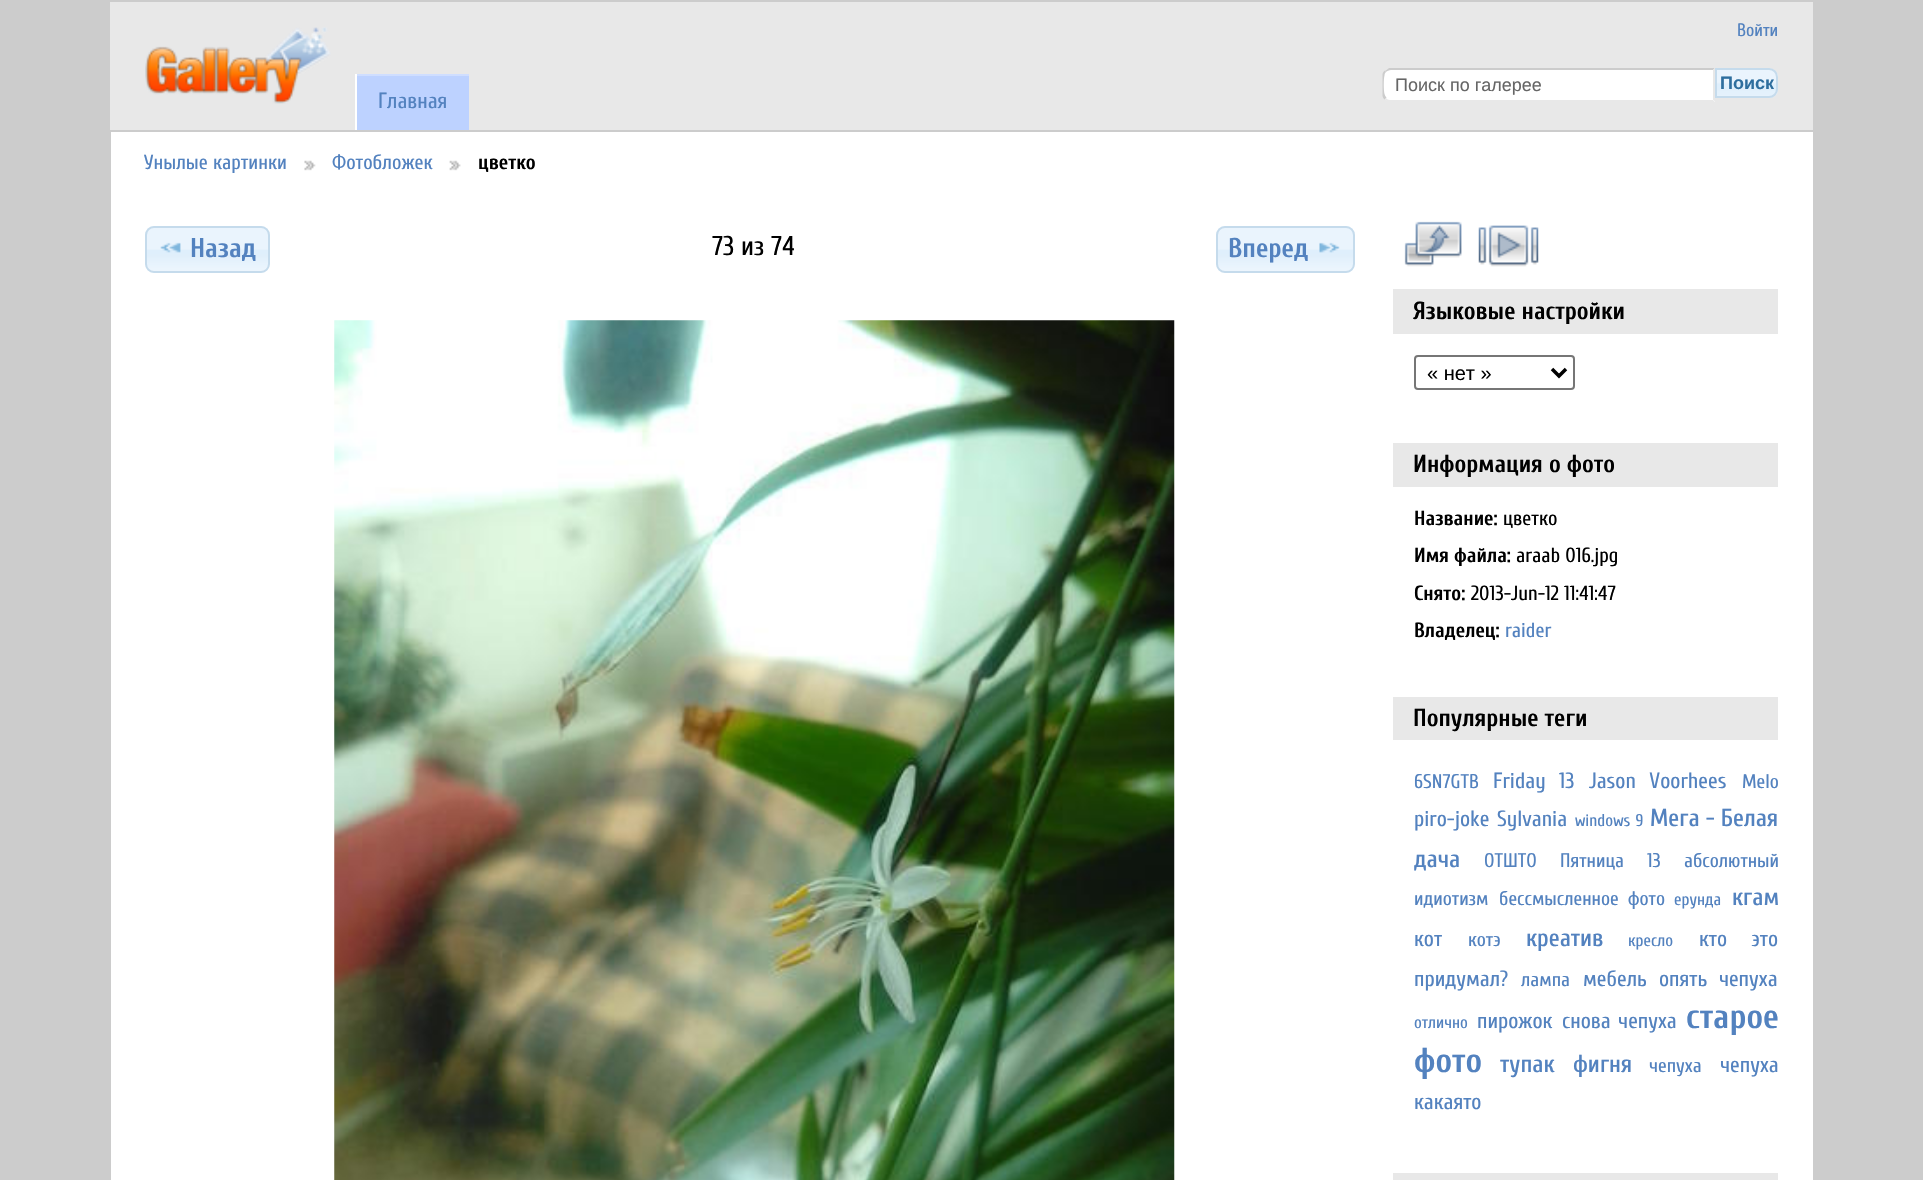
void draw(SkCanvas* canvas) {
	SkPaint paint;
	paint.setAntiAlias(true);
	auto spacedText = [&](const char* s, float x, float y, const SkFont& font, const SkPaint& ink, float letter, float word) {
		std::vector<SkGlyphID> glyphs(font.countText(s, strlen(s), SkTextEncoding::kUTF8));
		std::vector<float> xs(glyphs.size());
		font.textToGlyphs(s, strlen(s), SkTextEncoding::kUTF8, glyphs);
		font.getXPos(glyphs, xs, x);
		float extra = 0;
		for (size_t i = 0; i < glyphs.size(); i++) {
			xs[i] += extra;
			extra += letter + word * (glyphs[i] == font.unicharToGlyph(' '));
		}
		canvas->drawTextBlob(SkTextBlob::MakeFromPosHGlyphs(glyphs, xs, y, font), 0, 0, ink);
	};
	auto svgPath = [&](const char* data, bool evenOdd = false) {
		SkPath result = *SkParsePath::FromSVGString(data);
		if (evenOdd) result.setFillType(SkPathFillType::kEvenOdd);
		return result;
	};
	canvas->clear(0xffcccccc);
	paint.setColor(0xffffffff);
	canvas->drawRect(SkRect::MakeXYWH(111, 132, 1702, 1048), paint);
	paint.setColor(0xffe8e8e8);
	canvas->drawRect(SkRect::MakeXYWH(110, 2, 1703, 128), paint);
	canvas->drawImageRect(SkImages::DeferredFromEncodedData(SkData::MakeFromFileName("img1.png")), SkRect::MakeXYWH(145, 27, 186, 77), SkSamplingOptions());
	SkFont f1(fontMgr->matchFamilyStyle("Cuprum", SkFontStyle::Normal()), 18);
	f1.setSubpixel(true);
	paint.setColor(0xff5382bf);
	canvas->drawString("Войти", 1737, 36, f1, paint);
	paint.setColor(0xffffffff);
	canvas->drawPath(svgPath("M1392 68H1715V102H1392C1387 102 1383 98 1383 93V77C1383 72 1387 68 1392 68Z"), paint);
	paint.setColor(0xffcccccc);
	canvas->drawPath(svgPath("M1391 70C1389 70 1387 71 1386 72L1385 71L1389 68H1715L1713 70Z"), paint);
	paint.setColor(0xffe8e8e8);
	canvas->drawPath(svgPath("M1715 68L1713 70V99.5L1715 101.5Z"), paint);
	canvas->drawPath(svgPath("M1715 102H1388L1385 99L1386 98C1387 99 1388 100 1390 100H1713Z"), paint);
	paint.setColor(0xffcccccc);
	canvas->drawPath(svgPath("M1382.5 74C1383 72.5 1383.5 71.5 1385 70.5L1386 72C1385 73 1384.5 74 1384.5 75.5C1383.5 78.5 1383.5 91 1384.5 94C1385 95.5 1385.5 96.5 1386.5 97.5L1384.5 99.5C1383.5 98.5 1383 97.5 1382.5 96Z"), paint);
	SkFont f2(fontMgr->matchFamilyStyle("Liberation Sans", SkFontStyle::Normal()), 18);
	f2.setSubpixel(true);
	paint.setColor(0xff666666);
	canvas->drawString("Поиск по галерее", 1395, 91, f2, paint);
	canvas->drawImageRect(SkImages::DeferredFromEncodedData(SkData::MakeFromFileName("img2.png")), SkRect::MakeXYWH(1717, 68, 61, 30), SkSamplingOptions());
	paint.setStroke(true);
	paint.setStrokeWidth(2);
	paint.setColor(0xffc5dbec);
	canvas->drawPath(svgPath("M1716 69H1769C1773.5 69 1777 72.5 1777 77V89C1777 93.5 1773.5 97 1769 97H1716Z"), paint);
	SkFont f3(fontMgr->matchFamilyStyle("Liberation Sans", SkFontStyle::Bold()), 18);
	f3.setSubpixel(true);
	paint.setStroke(false);
	paint.setColor(0xff2e6e9e);
	canvas->drawString("Поиск", 1720, 89, f3, paint);
	paint.setColor(0xffbdd2ff);
	canvas->drawRect(SkRect::MakeXYWH(357, 76, 112, 54), paint);
	paint.setColor(0xffcfdeff);
	canvas->drawRect(SkRect::MakeXYWH(355, 74, 114, 2), paint);
	paint.setColor(0xffffffff);
	canvas->drawRect(SkRect::MakeXYWH(355, 74, 2, 56), paint);
	SkFont f4(fontMgr->matchFamilyStyle("Cuprum", SkFontStyle::Normal()), 22);
	f4.setSubpixel(true);
	paint.setColor(0xff5382bf);
	canvas->drawString("Главная", 378, 108, f4, paint);
	SkFont f5(fontMgr->matchFamilyStyle("Cuprum", SkFontStyle::Normal()), 20.5);
	f5.setSubpixel(true);
	canvas->drawString("Унылые картинки", 144, 169, f5, paint);
	canvas->drawImageRect(SkImages::DeferredFromEncodedData(SkData::MakeFromFileName("img3.png")), SkRect::MakeXYWH(304, 160, 12, 11), SkSamplingOptions());
	canvas->drawString("Фотобложек", 332, 169, f5, paint);
	canvas->drawImageRect(SkImages::DeferredFromEncodedData(SkData::MakeFromFileName("img4.png")), SkRect::MakeXYWH(449, 160, 12, 11), SkSamplingOptions());
	SkFont f6(fontMgr->matchFamilyStyle("Cuprum", SkFontStyle::Bold()), 20.5);
	f6.setSubpixel(true);
	paint.setColor(0xff000000);
	canvas->drawString("цветко", 478, 169, f6, paint);
	canvas->drawImageRect(SkImages::DeferredFromEncodedData(SkData::MakeFromFileName("img5.png")), SkRect::MakeXYWH(145, 226, 124, 47), SkSamplingOptions());
	paint.setStroke(true);
	paint.setColor(0xffc5dbec);
	canvas->drawRoundRect(SkRect::MakeXYWH(146, 227, 123, 45), 8, 8, paint);
	canvas->drawImageRect(SkImages::DeferredFromEncodedData(SkData::MakeFromFileName("img6.png")), SkRect::MakeXYWH(160, 242, 21, 11), SkSamplingOptions());
	SkFont f7(fontMgr->matchFamilyStyle("Cuprum", SkFontStyle::Bold()), 27);
	f7.setSubpixel(true);
	paint.setStroke(false);
	paint.setColor(0xff5382bf);
	canvas->drawString("Назад", 190, 257, f7, paint);
	SkFont f8(fontMgr->matchFamilyStyle("Cuprum", SkFontStyle::Normal()), 27);
	f8.setSubpixel(true);
	paint.setColor(0xff000000);
	canvas->drawString("73 из 74", 712, 255, f8, paint);
	canvas->drawImageRect(SkImages::DeferredFromEncodedData(SkData::MakeFromFileName("img7.png")), SkRect::MakeXYWH(1216, 226, 138, 47), SkSamplingOptions());
	paint.setStroke(true);
	paint.setColor(0xffc5dbec);
	canvas->drawRoundRect(SkRect::MakeXYWH(1217, 227, 137, 45), 8, 8, paint);
	paint.setStroke(false);
	paint.setColor(0xff5382bf);
	canvas->drawString("Вперед", 1228, 257, f7, paint);
	canvas->drawImageRect(SkImages::DeferredFromEncodedData(SkData::MakeFromFileName("img8.png")), SkRect::MakeXYWH(1319, 242, 21, 11), SkSamplingOptions());
	canvas->drawImageRect(SkImages::DeferredFromEncodedData(SkData::MakeFromFileName("img9.png")), SkRect::MakeXYWH(334, 320, 841, 860), SkSamplingOptions());
	canvas->drawImageRect(SkImages::DeferredFromEncodedData(SkData::MakeFromFileName("img10.png")), SkRect::MakeXYWH(1404, 221, 58, 46), SkSamplingOptions());
	canvas->drawImageRect(SkImages::DeferredFromEncodedData(SkData::MakeFromFileName("img11.png")), SkRect::MakeXYWH(1478, 225, 61, 42), SkSamplingOptions());
	paint.setColor(0xffe8e8e8);
	canvas->drawRect(SkRect::MakeXYWH(1393, 289, 385, 45), paint);
	SkFont f9(fontMgr->matchFamilyStyle("Cuprum", SkFontStyle::Bold()), 24.5);
	f9.setSubpixel(true);
	paint.setColor(0xff000000);
	canvas->drawString("Языковые настройки", 1413, 319, f9, paint);
	paint.setStroke(true);
	paint.setColor(0xff767676);
	canvas->drawRoundRect(SkRect::MakeXYWH(1415, 356, 159, 33), 3, 3, paint);
	paint.setStrokeWidth(3.5);
	paint.setColor(0xff000000);
	canvas->drawPath(svgPath("M1552 369L1559 376L1566 369"), paint);
	SkFont f10(fontMgr->matchFamilyStyle("Liberation Sans", SkFontStyle::Normal()), 20);
	f10.setSubpixel(true);
	paint.setStroke(false);
	canvas->drawString("« нет »", 1427, 380, f10, paint);
	paint.setColor(0xffe8e8e8);
	canvas->drawRect(SkRect::MakeXYWH(1393, 443, 385, 44), paint);
	paint.setColor(0xff000000);
	canvas->drawString("Информация о фото", 1413, 472, f9, paint);
	canvas->drawString("Название:", 1414, 525, f6, paint);
	canvas->drawString("цветко", 1503, 525, f5, paint);
	canvas->drawString("Имя файла:", 1414, 562, f6, paint);
	canvas->drawString("araab 016.jpg", 1516, 562, f5, paint);
	canvas->drawString("Снято:", 1414, 600, f6, paint);
	canvas->drawString("2013-Jun-12 11:41:47", 1471, 600, f5, paint);
	canvas->drawString("Владелец:", 1414, 637, f6, paint);
	paint.setColor(0xff5382bf);
	canvas->drawString("raider", 1505, 637, f5, paint);
	paint.setColor(0xffe8e8e8);
	canvas->drawRect(SkRect::MakeXYWH(1393, 697, 385, 43), paint);
	paint.setColor(0xff000000);
	canvas->drawString("Популярные теги", 1413, 726, f9, paint);
	SkFont f11(fontMgr->matchFamilyStyle("Cuprum", SkFontStyle::Normal()), 19.75);
	f11.setSubpixel(true);
	paint.setColor(0xff5382bf);
	canvas->drawString("6SN7GTB", 1414, 788, f11, paint);
	spacedText("Friday 13", 1493, 788, f4, paint, 0, 8);
	spacedText("Jason Voorhees", 1589, 788, f4, paint, 0, 8);
	canvas->drawString("Melo", 1742, 788, f11, paint);
	canvas->drawString("piro-joke", 1414, 826, f4, paint);
	canvas->drawString("Sylvania", 1497, 826, f4, paint);
	SkFont f12(fontMgr->matchFamilyStyle("Cuprum", SkFontStyle::Normal()), 17);
	f12.setSubpixel(true);
	spacedText("windows 9", 1575, 826, f12, paint, 0, 1);
	SkFont f13(fontMgr->matchFamilyStyle("Cuprum", SkFontStyle(500, SkFontStyle::kNormal_Width, SkFontStyle::kUpright_Slant)), 24.5);
	f13.setSubpixel(true);
	canvas->drawString("Мега - Белая", 1650, 826, f13, paint);
	canvas->drawString("дача", 1414, 867, f13, paint);
	canvas->drawString("ОТШТО", 1484, 867, f11, paint);
	spacedText("Пятница 13", 1560, 867, f11, paint, 0, 18);
	canvas->drawString("абсолютный", 1684, 867, f11, paint);
	canvas->drawString("идиотизм", 1414, 905, f11, paint);
	spacedText("бессмысленное фото", 1499, 905, f11, paint, 0, 4);
	canvas->drawString("ерунда", 1674, 905, f12, paint);
	canvas->drawString("кгам", 1732, 905, f13, paint);
	canvas->drawString("кот", 1414, 946, f4, paint);
	canvas->drawString("котэ", 1468, 946, f11, paint);
	canvas->drawString("креатив", 1526, 946, f13, paint);
	canvas->drawString("кресло", 1628, 946, f12, paint);
	spacedText("кто это", 1699, 946, f4, paint, 0, 19);
	canvas->drawString("придумал?", 1414, 986, f4, paint);
	canvas->drawString("лампа", 1521, 986, f11, paint);
	canvas->drawString("мебель", 1583, 986, f4, paint);
	spacedText("опять чепуха", 1659, 986, f4, paint, 0, 6);
	canvas->drawString("отлично", 1414, 1028, f12, paint);
	canvas->drawString("пирожок", 1477, 1028, f4, paint);
	spacedText("снова чепуха", 1562, 1028, f4, paint, 0, 2);
	SkFont f14(fontMgr->matchFamilyStyle("Cuprum", SkFontStyle::Bold()), 34.5);
	f14.setSubpixel(true);
	canvas->drawString("старое", 1686, 1028, f14, paint);
	canvas->drawString("фото", 1414, 1072, f14, paint);
	canvas->drawString("тупак", 1500, 1072, f13, paint);
	canvas->drawString("фигня", 1573, 1072, f13, paint);
	canvas->drawString("чепуха", 1649, 1072, f11, paint);
	canvas->drawString("чепуха", 1720, 1072, f4, paint);
	canvas->drawString("какаято", 1414, 1109, f4, paint);
	paint.setColor(0xffe8e8e8);
	canvas->drawRect(SkRect::MakeXYWH(1393, 1173, 385, 7), paint);
}
